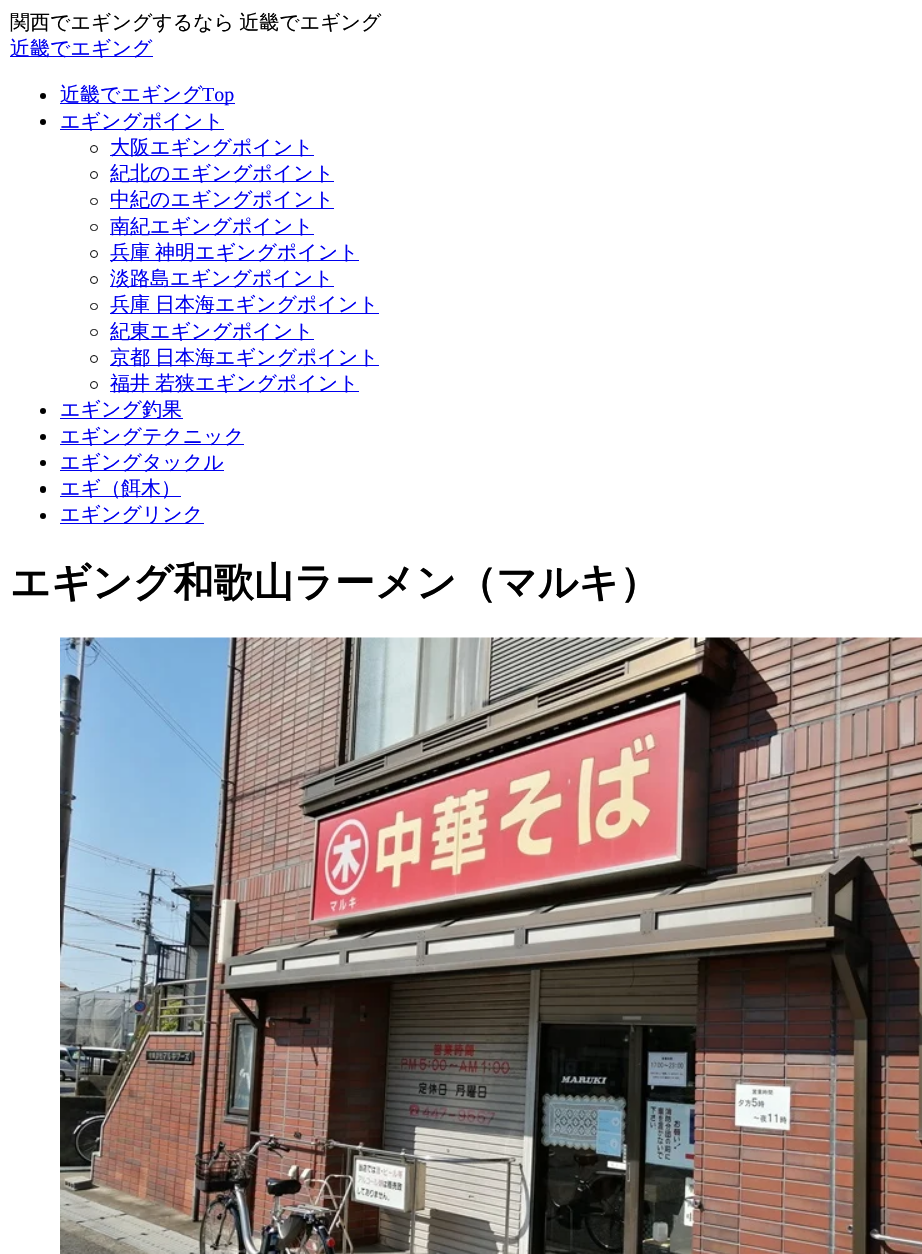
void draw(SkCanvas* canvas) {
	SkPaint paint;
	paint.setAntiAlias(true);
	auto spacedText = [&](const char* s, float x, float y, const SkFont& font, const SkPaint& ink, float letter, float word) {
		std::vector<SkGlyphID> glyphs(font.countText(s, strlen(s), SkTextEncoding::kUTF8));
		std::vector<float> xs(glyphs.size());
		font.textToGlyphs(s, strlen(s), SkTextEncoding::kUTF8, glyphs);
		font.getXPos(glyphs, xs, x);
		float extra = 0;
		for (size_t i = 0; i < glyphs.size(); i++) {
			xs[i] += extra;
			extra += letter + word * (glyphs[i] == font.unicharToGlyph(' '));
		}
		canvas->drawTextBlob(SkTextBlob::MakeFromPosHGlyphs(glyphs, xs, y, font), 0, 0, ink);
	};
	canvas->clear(0xffffffff);
	SkFont f1(fontMgr->matchFamilyStyle("WenQuanYi Zen Hei", SkFontStyle(500, SkFontStyle::kNormal_Width, SkFontStyle::kUpright_Slant)), 20);
	f1.setSubpixel(true);
	paint.setColor(0xff000000);
	spacedText("関西でエギングするなら 近畿でエギング", 10, 29, f1, paint, 0, -1);
	paint.setColor(0xff0000ee);
	canvas->drawRect(SkRect::MakeXYWH(10, 56, 143, 1), paint);
	canvas->drawString("近畿でエギング", 10, 55, f1, paint);
	paint.setColor(0xff000000);
	canvas->drawCircle(43, 96, 3, paint);
	paint.setColor(0xff0000ee);
	canvas->drawRect(SkRect::MakeXYWH(60, 103, 175, 1), paint);
	canvas->drawString("近畿でエギング", 60, 101, f1, paint);
	SkFont f2(fontMgr->matchFamilyStyle("Liberation Serif", SkFontStyle::Normal()), 20);
	f2.setSubpixel(true);
	canvas->drawString("Top", 202, 101, f2, paint);
	paint.setColor(0xff000000);
	canvas->drawCircle(43, 122, 3, paint);
	paint.setColor(0xff0000ee);
	canvas->drawRect(SkRect::MakeXYWH(60, 129, 164, 1), paint);
	canvas->drawString("エギングポイント", 60, 128, f1, paint);
	paint.setStroke(true);
	paint.setStrokeWidth(1);
	paint.setColor(0xff000000);
	canvas->drawCircle(94, 149, 3.5, paint);
	paint.setStroke(false);
	paint.setColor(0xff0000ee);
	canvas->drawRect(SkRect::MakeXYWH(110, 155, 204, 1), paint);
	canvas->drawString("大阪エギングポイント", 110, 154, f1, paint);
	paint.setStroke(true);
	paint.setColor(0xff000000);
	canvas->drawCircle(94, 175, 3.5, paint);
	paint.setStroke(false);
	paint.setColor(0xff0000ee);
	canvas->drawRect(SkRect::MakeXYWH(110, 181, 224, 1), paint);
	canvas->drawString("紀北のエギングポイント", 110, 180, f1, paint);
	paint.setStroke(true);
	paint.setColor(0xff000000);
	canvas->drawRoundRect(SkRect::MakeXYWH(90.5, 198.5, 7, 6), 3, 3, paint);
	paint.setStroke(false);
	paint.setColor(0xff0000ee);
	canvas->drawRect(SkRect::MakeXYWH(110, 208, 224, 1), paint);
	canvas->drawString("中紀のエギングポイント", 110, 206, f1, paint);
	paint.setStroke(true);
	paint.setColor(0xff000000);
	canvas->drawRoundRect(SkRect::MakeXYWH(90.5, 224.5, 7, 6), 3, 3, paint);
	paint.setStroke(false);
	paint.setColor(0xff0000ee);
	canvas->drawRect(SkRect::MakeXYWH(110, 234, 204, 1), paint);
	canvas->drawString("南紀エギングポイント", 110, 233, f1, paint);
	paint.setStroke(true);
	paint.setColor(0xff000000);
	canvas->drawCircle(94, 254, 3.5, paint);
	paint.setStroke(false);
	paint.setColor(0xff0000ee);
	canvas->drawRect(SkRect::MakeXYWH(110, 260, 249, 1), paint);
	spacedText("兵庫 神明エギングポイント", 110, 259, f1, paint, 0, -1);
	paint.setStroke(true);
	paint.setColor(0xff000000);
	canvas->drawCircle(94, 280, 3.5, paint);
	paint.setStroke(false);
	paint.setColor(0xff0000ee);
	canvas->drawRect(SkRect::MakeXYWH(110, 286, 224, 1), paint);
	canvas->drawString("淡路島エギングポイント", 110, 285, f1, paint);
	paint.setStroke(true);
	paint.setColor(0xff000000);
	canvas->drawRoundRect(SkRect::MakeXYWH(90.5, 303.5, 7, 6), 3, 3, paint);
	paint.setStroke(false);
	paint.setColor(0xff0000ee);
	canvas->drawRect(SkRect::MakeXYWH(110, 313, 269, 1), paint);
	spacedText("兵庫 日本海エギングポイント", 110, 311, f1, paint, 0, -1);
	paint.setStroke(true);
	paint.setColor(0xff000000);
	canvas->drawRoundRect(SkRect::MakeXYWH(90.5, 329.5, 7, 6), 3, 3, paint);
	paint.setStroke(false);
	paint.setColor(0xff0000ee);
	canvas->drawRect(SkRect::MakeXYWH(110, 339, 204, 1), paint);
	canvas->drawString("紀東エギングポイント", 110, 338, f1, paint);
	paint.setStroke(true);
	paint.setColor(0xff000000);
	canvas->drawCircle(94, 359, 3.5, paint);
	paint.setStroke(false);
	paint.setColor(0xff0000ee);
	canvas->drawRect(SkRect::MakeXYWH(110, 365, 269, 1), paint);
	spacedText("京都 日本海エギングポイント", 110, 364, f1, paint, 0, -1);
	paint.setStroke(true);
	paint.setColor(0xff000000);
	canvas->drawCircle(94, 385, 3.5, paint);
	paint.setStroke(false);
	paint.setColor(0xff0000ee);
	canvas->drawRect(SkRect::MakeXYWH(110, 391, 249, 1), paint);
	spacedText("福井 若狭エギングポイント", 110, 390, f1, paint, 0, -1);
	paint.setColor(0xff000000);
	canvas->drawCircle(43, 411, 3, paint);
	paint.setColor(0xff0000ee);
	canvas->drawRect(SkRect::MakeXYWH(60, 418, 123, 1), paint);
	canvas->drawString("エギング釣果", 60, 416, f1, paint);
	paint.setColor(0xff000000);
	canvas->drawCircle(43, 437, 3, paint);
	paint.setColor(0xff0000ee);
	canvas->drawRect(SkRect::MakeXYWH(60, 444, 184, 1), paint);
	canvas->drawString("エギングテクニック", 60, 443, f1, paint);
	paint.setColor(0xff000000);
	canvas->drawCircle(43, 463, 3, paint);
	paint.setColor(0xff0000ee);
	canvas->drawRect(SkRect::MakeXYWH(60, 470, 164, 1), paint);
	canvas->drawString("エギングタックル", 60, 469, f1, paint);
	paint.setColor(0xff000000);
	canvas->drawRoundRect(SkRect::MakeXYWH(40, 486, 6, 7), 3, 3, paint);
	paint.setColor(0xff0000ee);
	canvas->drawRect(SkRect::MakeXYWH(60, 496, 121, 1), paint);
	canvas->drawString("エギ（餌木）", 60, 495, f1, paint);
	paint.setColor(0xff000000);
	canvas->drawCircle(43, 516, 3, paint);
	paint.setColor(0xff0000ee);
	canvas->drawRect(SkRect::MakeXYWH(60, 523, 144, 1), paint);
	canvas->drawString("エギングリンク", 60, 521, f1, paint);
	SkFont f3(fontMgr->matchFamilyStyle("WenQuanYi Zen Hei", SkFontStyle::Bold()), 40);
	f3.setSubpixel(true);
	paint.setColor(0xff000000);
	canvas->drawString("エギング和歌山ラーメン（マルキ）", 10, 596, f3, paint);
	canvas->drawImageRect(SkImages::DeferredFromEncodedData(SkData::MakeFromFileName("img1.png")), SkRect::MakeXYWH(60, 637, 862, 617), SkSamplingOptions());
}
